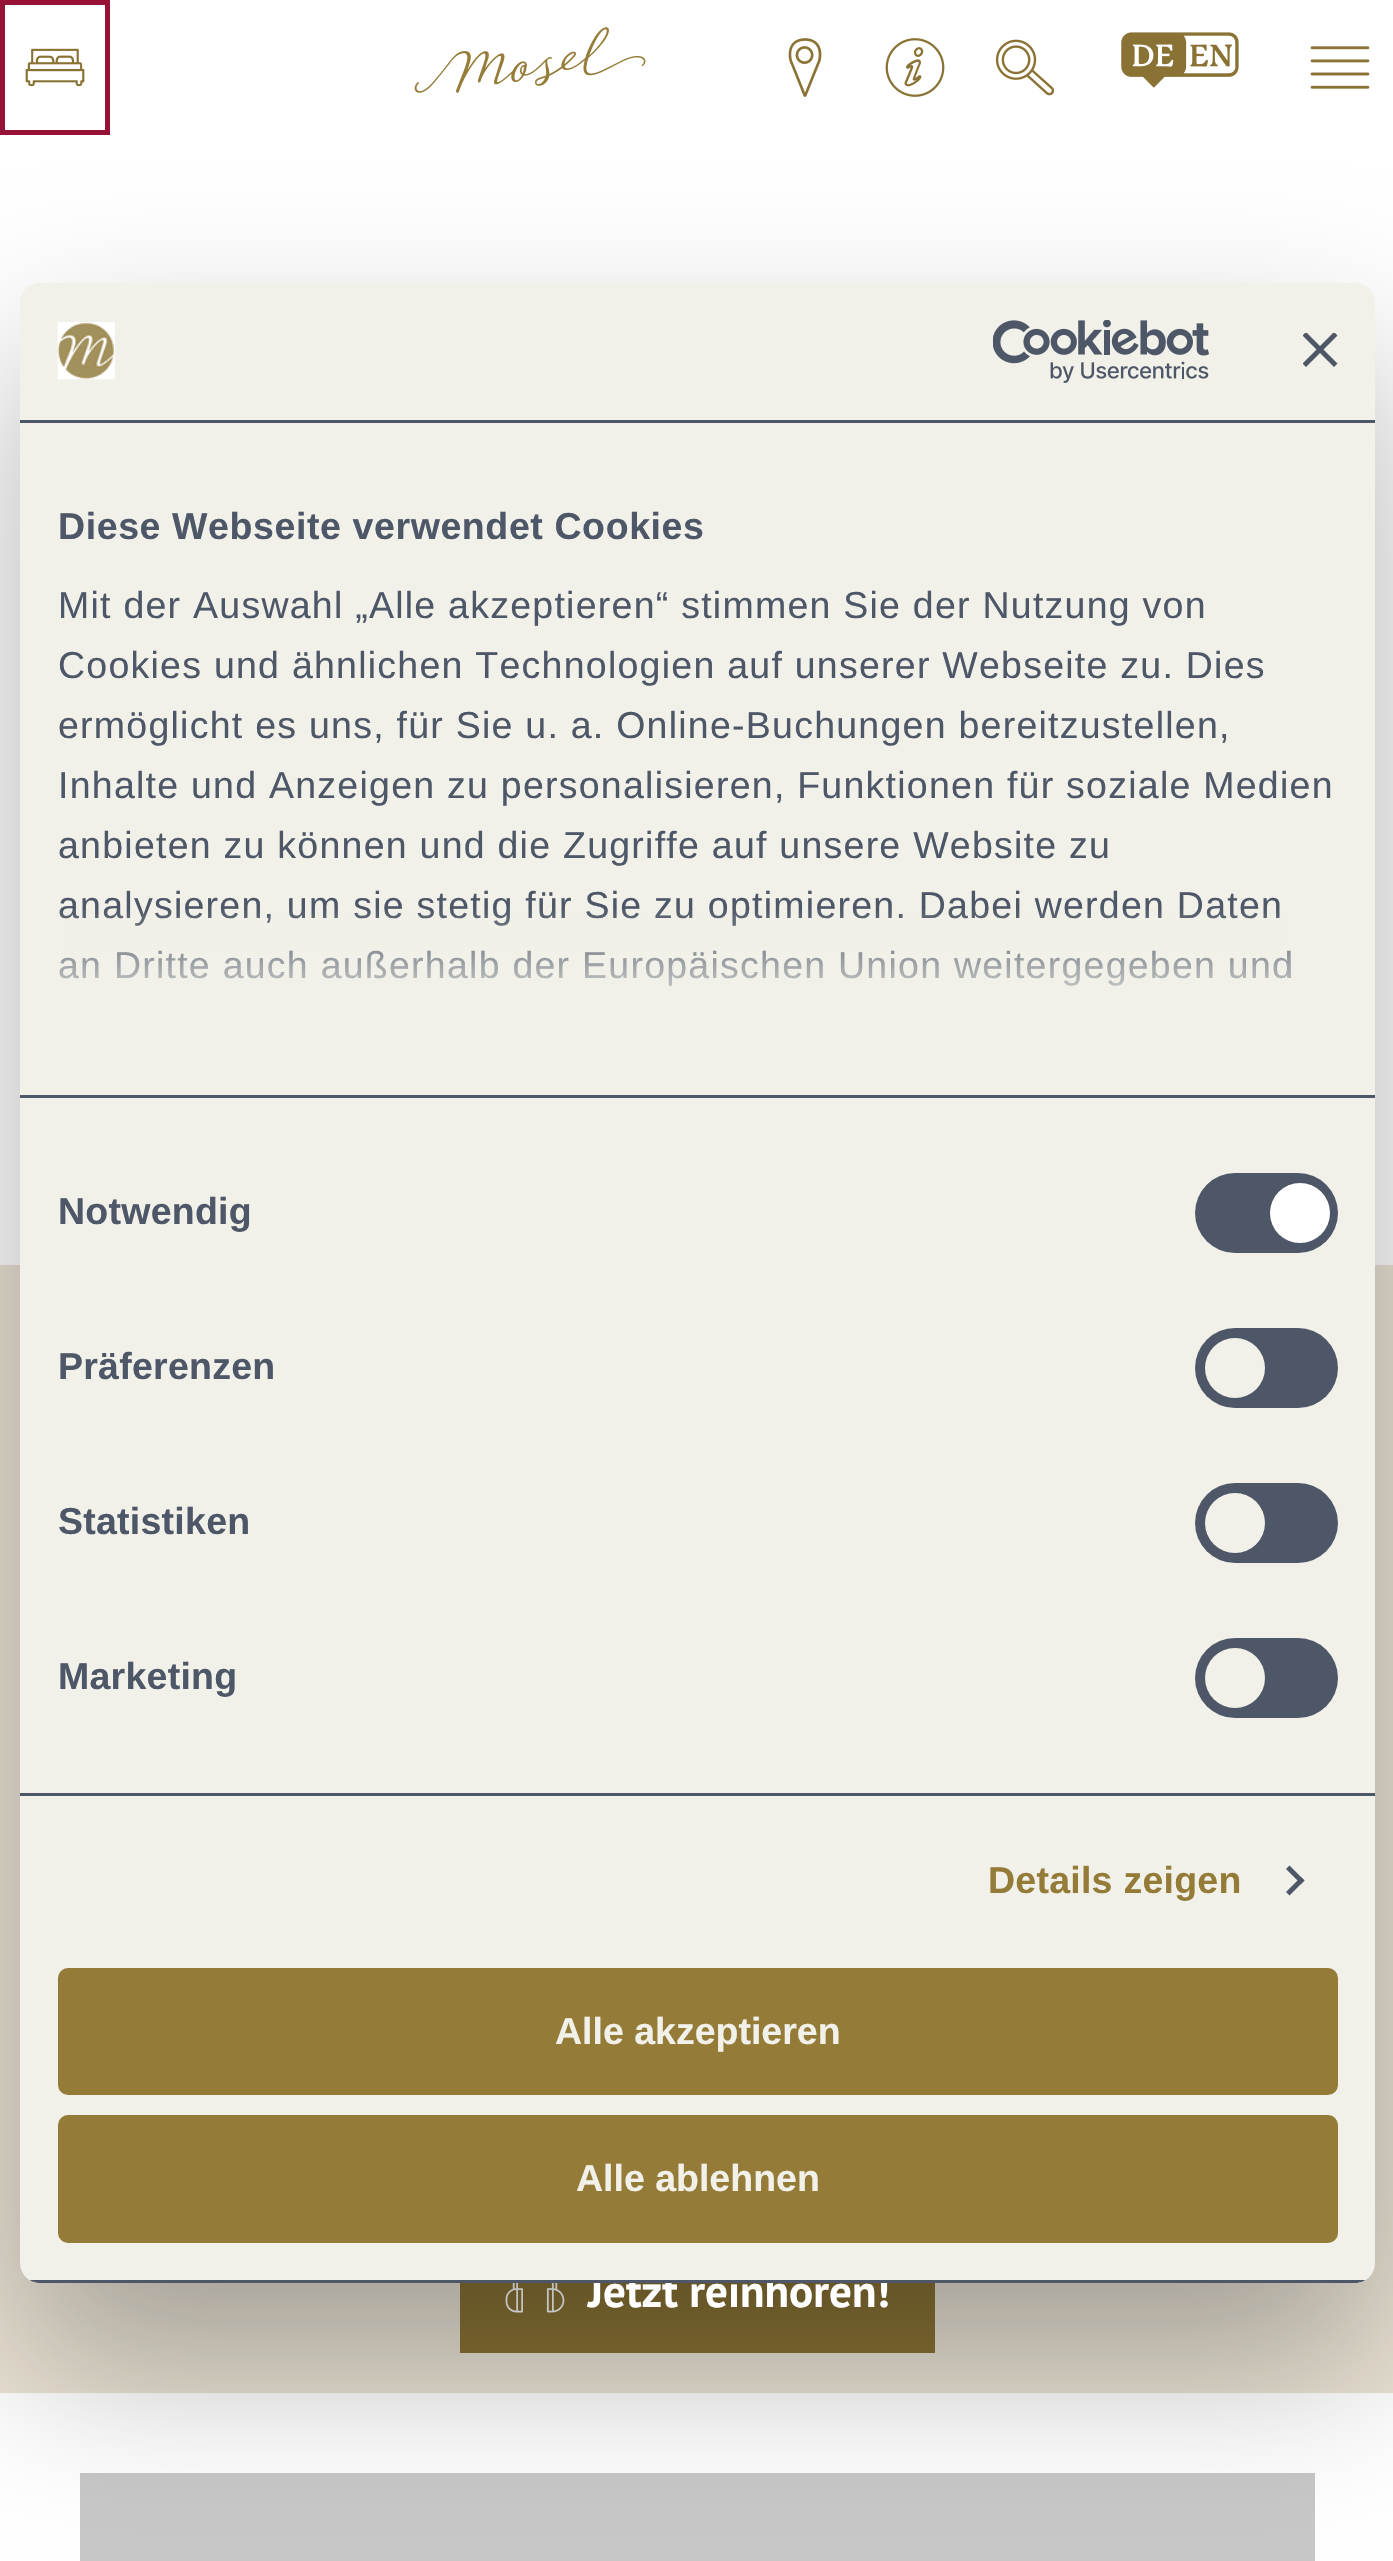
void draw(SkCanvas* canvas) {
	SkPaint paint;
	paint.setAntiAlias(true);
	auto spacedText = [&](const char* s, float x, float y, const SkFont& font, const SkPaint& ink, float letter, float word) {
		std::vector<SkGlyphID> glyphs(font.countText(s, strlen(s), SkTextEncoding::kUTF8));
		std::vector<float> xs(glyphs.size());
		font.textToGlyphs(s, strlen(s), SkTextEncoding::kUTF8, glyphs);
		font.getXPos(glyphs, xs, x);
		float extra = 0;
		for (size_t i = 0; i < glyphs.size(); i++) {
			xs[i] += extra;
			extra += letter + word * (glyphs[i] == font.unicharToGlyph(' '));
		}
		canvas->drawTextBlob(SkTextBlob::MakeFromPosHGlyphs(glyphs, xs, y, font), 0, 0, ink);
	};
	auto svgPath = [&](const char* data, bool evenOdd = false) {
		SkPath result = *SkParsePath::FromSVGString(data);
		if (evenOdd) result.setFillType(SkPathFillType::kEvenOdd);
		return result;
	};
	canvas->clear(0xffffffff);
	paint.setStroke(true);
	paint.setStrokeWidth(5);
	paint.setColor(0xff961337);
	canvas->drawRect(SkRect::MakeXYWH(2.5, 2.5, 105, 130), paint);
	canvas->drawImageRect(SkImages::DeferredFromEncodedData(SkData::MakeFromFileName("img1.png")), SkRect::MakeXYWH(25, 48, 60, 39), SkSamplingOptions());
	canvas->drawImageRect(SkImages::DeferredFromEncodedData(SkData::MakeFromFileName("img2.png")), SkRect::MakeXYWH(414, 27, 232, 66), SkSamplingOptions());
	canvas->drawImageRect(SkImages::DeferredFromEncodedData(SkData::MakeFromFileName("img3.png")), SkRect::MakeXYWH(788, 38, 34, 59), SkSamplingOptions());
	canvas->drawImageRect(SkImages::DeferredFromEncodedData(SkData::MakeFromFileName("img4.png")), SkRect::MakeXYWH(885, 38, 60, 59), SkSamplingOptions());
	canvas->drawImageRect(SkImages::DeferredFromEncodedData(SkData::MakeFromFileName("img5.png")), SkRect::MakeXYWH(995, 39, 60, 57), SkSamplingOptions());
	canvas->drawImageRect(SkImages::DeferredFromEncodedData(SkData::MakeFromFileName("img6.png")), SkRect::MakeXYWH(1121, 32, 118, 56), SkSamplingOptions());
	canvas->drawImageRect(SkImages::DeferredFromEncodedData(SkData::MakeFromFileName("img7.png")), SkRect::MakeXYWH(1310, 46, 60, 43), SkSamplingOptions());
	paint.setStroke(false);
	paint.setColor(0xffeae3d5);
	canvas->drawRect(SkRect::MakeXYWH(0, 1265, 1393, 1128), paint);
	paint.setColor(0xff897234);
	canvas->drawRect(SkRect::MakeXYWH(460, 2283, 475, 70), paint);
	canvas->drawImageRect(SkImages::DeferredFromEncodedData(SkData::MakeFromFileName("img10.png")), SkRect::MakeXYWH(505, 2283, 60, 30), SkSamplingOptions());
	paint.setColor(0xffc8c8c8);
	canvas->drawRect(SkRect::MakeXYWH(80, 2473, 1235, 88), paint);
	paint.setColor(0x4d000000);
	paint.setMaskFilter(SkMaskFilter::MakeBlur(kNormal_SkBlurStyle, 85));
	canvas->drawRoundRect(SkRect::MakeXYWH(20, 363, 1355, 2000), 20, 20, paint);
	paint.setMaskFilter(nullptr);
	SkFont f1(fontMgr->matchFamilyStyle("PT Sans", SkFontStyle::Bold()), 45);
	f1.setSubpixel(true);
	paint.setColor(0xffffffff);
	canvas->drawString("Jetzt reinhören!", 588, 2307, f1, paint);
	paint.setColor(0xfff1f1e9);
	canvas->drawRoundRect(SkRect::MakeXYWH(20, 283, 1355, 2000), 20, 20, paint);
	paint.setColor(0xff4e5767);
	canvas->drawRect(SkRect::MakeXYWH(20, 420, 1355, 3), paint);
	canvas->drawImageRect(SkImages::DeferredFromEncodedData(SkData::MakeFromFileName("img8.png")), SkRect::MakeXYWH(57, 322, 58, 58), SkSamplingOptions());
	canvas->drawImageRect(SkImages::DeferredFromEncodedData(SkData::MakeFromFileName("img9.png")), SkRect::MakeXYWH(993, 320, 216, 63), SkSamplingOptions());
	canvas->save();
	canvas->clipRect(SkRect::MakeXYWH(1303, 333, 35, 35));
	canvas->drawPath(svgPath("M1337.5 335.5L1334 332L1320 346L1306 332L1302.5 335.5L1316.5 349.5L1302.5 363.5L1306 367L1320 353L1334 367L1337.5 363.5L1323.5 349.5Z"), paint);
	canvas->restore();
	canvas->drawRect(SkRect::MakeXYWH(20, 1095, 1355, 3), paint);
	SkFont f2(fontMgr->matchFamilyStyle("Liberation Sans", SkFontStyle::Bold()), 37.5);
	f2.setSubpixel(true);
	spacedText("Diese Webseite verwendet Cookies", 58, 539, f2, paint, 0.6, 0);
	SkFont f3(fontMgr->matchFamilyStyle("Liberation Sans", SkFontStyle::Normal()), 37.5);
	f3.setSubpixel(true);
	spacedText("Mit der Auswahl „Alle akzeptieren“ stimmen Sie der Nutzung von", 58, 618, f3, paint, 1.25, 0);
	spacedText("Cookies und ähnlichen Technologien auf unserer Webseite zu. Dies", 58, 678, f3, paint, 1.25, 0);
	spacedText("ermöglicht es uns, für Sie u. a. Online-Buchungen bereitzustellen,", 58, 738, f3, paint, 1.25, 0);
	spacedText("Inhalte und Anzeigen zu personalisieren, Funktionen für soziale Medien", 58, 798, f3, paint, 1.25, 0);
	spacedText("anbieten zu können und die Zugriffe auf unsere Website zu", 58, 858, f3, paint, 1.25, 0);
	spacedText("analysieren, um sie stetig für Sie zu optimieren. Dabei werden Daten", 58, 918, f3, paint, 1.25, 0);
	spacedText("an Dritte auch außerhalb der Europäischen Union weitergegeben und", 58, 978, f3, paint, 1.25, 0);
	{
		const SkColor colors[] = {0xfff1f1e9, 0xccf1f1e9, 0x00f1f1e9};
		const float stops[] = {0, 0.5, 1};
		const SkPoint ends[] = {{681, 1094}, {681, 907}};
		paint.setShader(SkGradientShader::MakeLinear(ends, colors, stops, 3, SkTileMode::kClamp));
		paint.setAlpha(255);
	}
	canvas->drawRect(SkRect::MakeXYWH(59, 910, 1231, 76), paint);
	paint.setShader(nullptr);
	paint.setColor(0xff4e5767);
	canvas->drawRect(SkRect::MakeXYWH(20, 1793, 1355, 3), paint);
	spacedText("Notwendig", 58, 1224, f2, paint, 0.25, 0);
	canvas->drawRoundRect(SkRect::MakeXYWH(1195, 1173, 143, 80), 40, 40, paint);
	paint.setColor(0xffffffff);
	canvas->drawCircle(1300, 1213, 30, paint);
	paint.setColor(0xff4e5767);
	spacedText("Präferenzen", 58, 1379, f2, paint, 0.25, 0);
	canvas->drawRoundRect(SkRect::MakeXYWH(1195, 1328, 143, 80), 40, 40, paint);
	paint.setColor(0xfff1f1e9);
	canvas->drawCircle(1235, 1368, 30, paint);
	paint.setColor(0xff4e5767);
	spacedText("Statistiken", 58, 1534, f2, paint, 0.25, 0);
	canvas->drawRoundRect(SkRect::MakeXYWH(1195, 1483, 143, 80), 40, 40, paint);
	paint.setColor(0xfff1f1e9);
	canvas->drawCircle(1235, 1523, 30, paint);
	paint.setColor(0xff4e5767);
	spacedText("Marketing", 58, 1689, f2, paint, 0.25, 0);
	canvas->drawRoundRect(SkRect::MakeXYWH(1195, 1638, 143, 80), 40, 40, paint);
	paint.setColor(0xfff1f1e9);
	canvas->drawCircle(1235, 1678, 30, paint);
	paint.setColor(0xff947b38);
	spacedText("Details zeigen", 988, 1893, f2, paint, 0.25, 0);
	paint.setColor(0xff4e5767);
	canvas->drawPath(svgPath("M1289.5 1865.5L1304.5 1880.5L1301 1884L1286 1869Z"), paint);
	canvas->drawPath(svgPath("M1301 1877L1304.5 1880.5L1289.5 1895.5L1286 1892Z"), paint);
	canvas->save();
	canvas->clipPath(svgPath("M40 283H1355C1366 283 1375 292 1375 303V2263C1375 2274 1366 2283 1355 2283H40C29 2283 20 2274 20 2263V303C20 292 29 283 40 283Z"), true);
	canvas->drawRect(SkRect::MakeXYWH(29, 2280, 1337, 3), paint);
	canvas->restore();
	paint.setColor(0xff947b38);
	canvas->drawRoundRect(SkRect::MakeXYWH(60.5, 1970.5, 1275, 122), 7.5, 7.5, paint);
	paint.setStroke(true);
	canvas->drawRoundRect(SkRect::MakeXYWH(60.5, 1970.5, 1275, 122), 7.5, 7.5, paint);
	paint.setStroke(false);
	paint.setColor(0xfff1f1e9);
	canvas->drawString("Alle akzeptieren", 555, 2044, f2, paint);
	paint.setColor(0xff947b38);
	canvas->drawRoundRect(SkRect::MakeXYWH(60.5, 2117.5, 1275, 123), 7.5, 7.5, paint);
	paint.setStroke(true);
	canvas->drawRoundRect(SkRect::MakeXYWH(60.5, 2117.5, 1275, 123), 7.5, 7.5, paint);
	paint.setStroke(false);
	paint.setColor(0xfff1f1e9);
	canvas->drawString("Alle ablehnen", 576, 2191, f2, paint);
}
